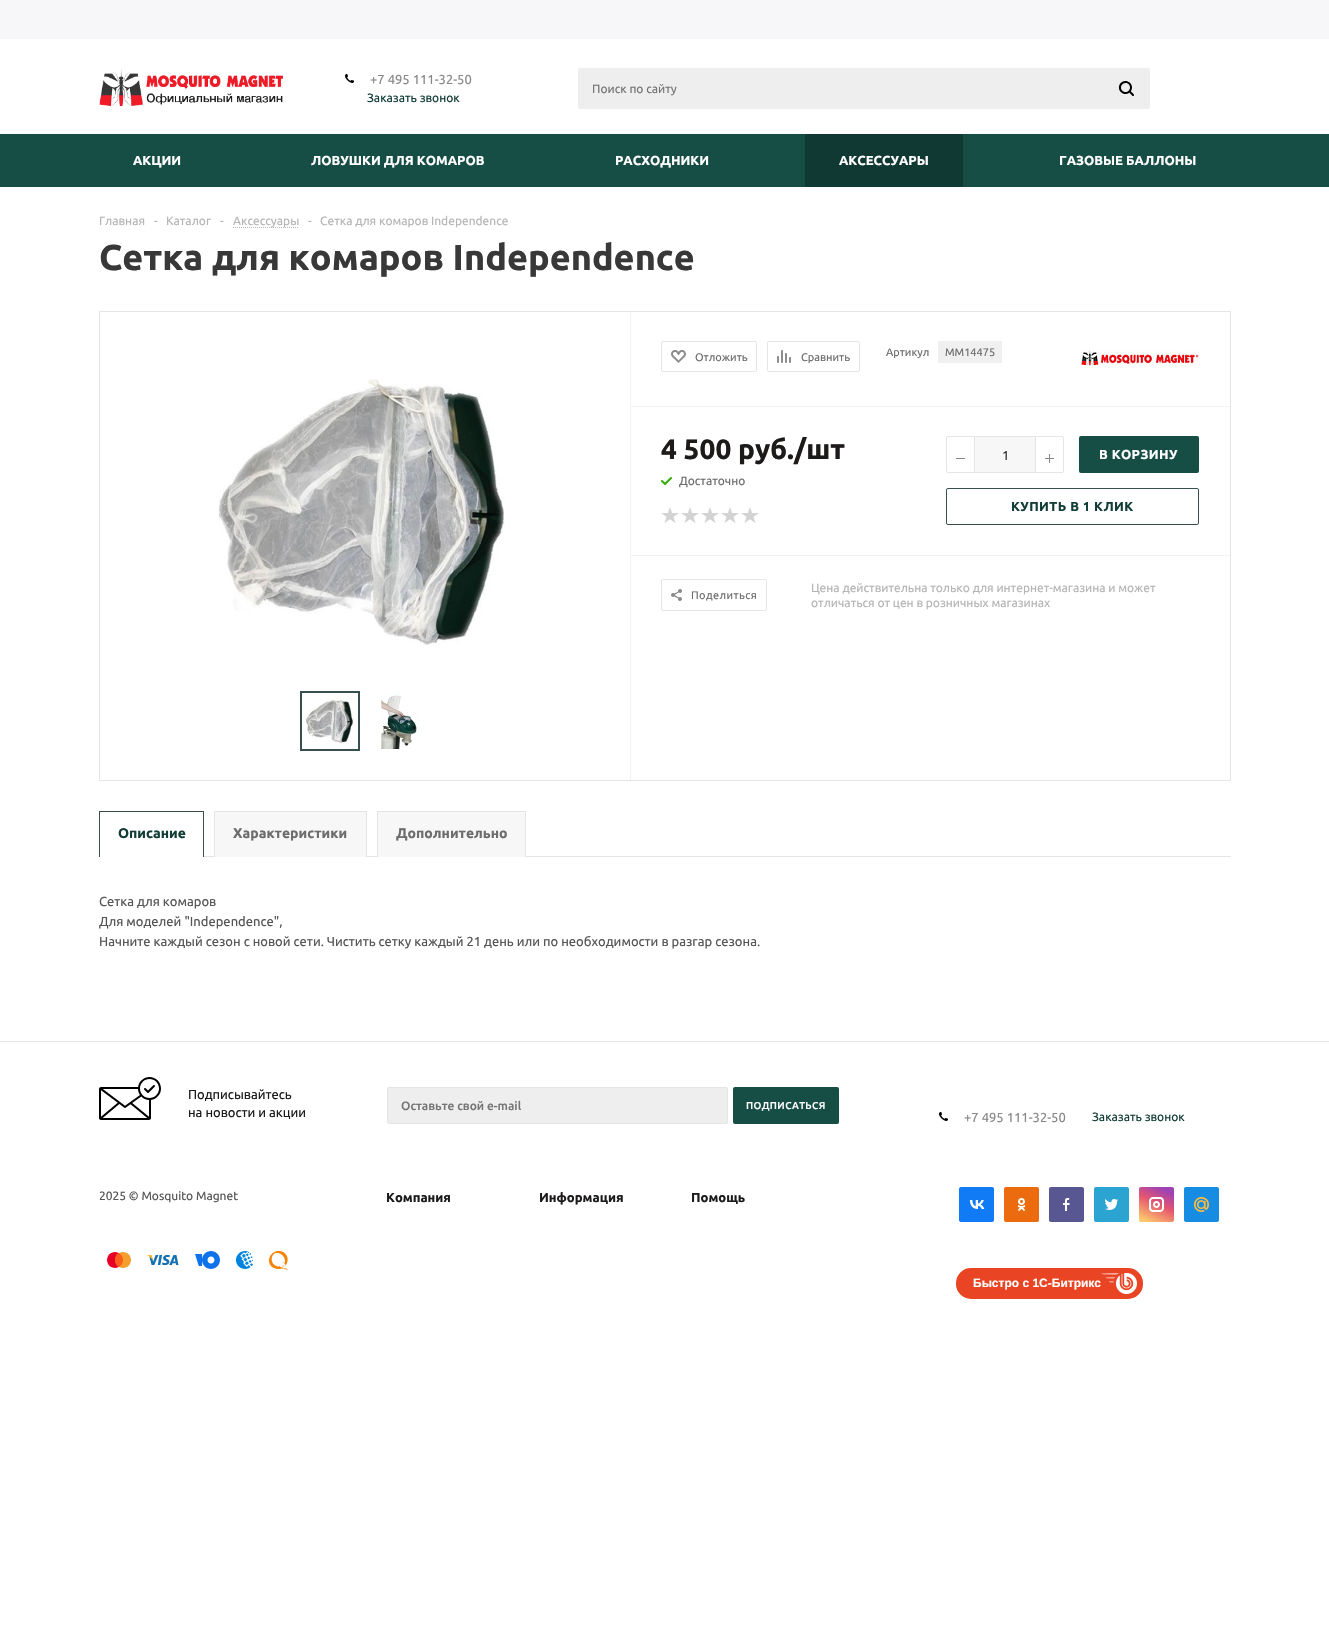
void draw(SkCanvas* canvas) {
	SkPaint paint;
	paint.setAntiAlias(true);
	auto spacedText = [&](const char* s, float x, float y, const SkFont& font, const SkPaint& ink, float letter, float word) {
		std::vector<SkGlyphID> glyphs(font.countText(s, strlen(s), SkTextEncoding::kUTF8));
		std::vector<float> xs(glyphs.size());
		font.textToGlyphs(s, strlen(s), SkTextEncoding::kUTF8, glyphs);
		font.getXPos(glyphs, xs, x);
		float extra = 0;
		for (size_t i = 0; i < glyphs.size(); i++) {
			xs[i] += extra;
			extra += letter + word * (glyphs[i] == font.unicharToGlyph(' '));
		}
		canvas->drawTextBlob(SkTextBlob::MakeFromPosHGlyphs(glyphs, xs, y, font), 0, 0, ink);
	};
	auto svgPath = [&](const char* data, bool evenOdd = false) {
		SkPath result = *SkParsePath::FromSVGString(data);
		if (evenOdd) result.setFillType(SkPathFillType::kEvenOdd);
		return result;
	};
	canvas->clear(0xffffffff);
	paint.setColor(0xfff7f7f9);
	canvas->drawRect(SkRect::MakeXYWH(0, 0, 1329, 39), paint);
	canvas->drawImageRect(SkImages::DeferredFromEncodedData(SkData::MakeFromFileName("img1.png")), SkRect::MakeXYWH(99, 69, 184, 37), SkSamplingOptions());
	canvas->drawImageRect(SkImages::DeferredFromEncodedData(SkData::MakeFromFileName("img2.png")), SkRect::MakeXYWH(345, 74, 9, 9), SkSamplingOptions());
	SkFont f1(fontMgr->matchFamilyStyle("Ubuntu", SkFontStyle::Normal()), 13);
	f1.setSubpixel(true);
	paint.setColor(0xff888888);
	canvas->drawString("+7 495 111-32-50", 370, 84, f1, paint);
	SkFont f2(fontMgr->matchFamilyStyle("Ubuntu", SkFontStyle::Normal()), 12);
	f2.setSubpixel(true);
	paint.setColor(0xff123d36);
	canvas->drawString("Заказать звонок", 367, 102, f2, paint);
	paint.setColor(0xffeeeeee);
	canvas->drawRoundRect(SkRect::MakeXYWH(578, 68, 572, 41), 2, 2, paint);
	paint.setColor(0xff757575);
	canvas->drawString("Поиск по сайту", 592, 93, f2, paint);
	canvas->drawImageRect(SkImages::DeferredFromEncodedData(SkData::MakeFromFileName("img3.png")), SkRect::MakeXYWH(1118, 81, 16, 15), SkSamplingOptions());
	paint.setColor(0xff164d44);
	canvas->drawRect(SkRect::MakeXYWH(0, 134, 1329, 53), paint);
	SkFont f3(fontMgr->matchFamilyStyle("Ubuntu", SkFontStyle::Bold()), 13);
	f3.setSubpixel(true);
	paint.setColor(0xffffffff);
	canvas->drawString("АКЦИИ", 133, 165, f3, paint);
	canvas->drawString("ЛОВУШКИ ДЛЯ КОМАРОВ", 311, 165, f3, paint);
	canvas->drawString("РАСХОДНИКИ", 615, 165, f3, paint);
	paint.setColor(0xff113934);
	canvas->drawRect(SkRect::MakeXYWH(805, 134, 158, 53), paint);
	paint.setColor(0xffffffff);
	canvas->drawString("АКСЕССУАРЫ", 839, 165, f3, paint);
	canvas->drawString("ГАЗОВЫЕ БАЛЛОНЫ", 1059, 165, f3, paint);
	paint.setColor(0xffb6b5b5);
	canvas->drawString("Главная", 99, 225, f2, paint);
	canvas->drawString("-", 154, 225, f2, paint);
	canvas->drawString("Каталог", 166, 225, f2, paint);
	canvas->drawString("-", 220, 225, f2, paint);
	paint.setStroke(true);
	paint.setStrokeWidth(1);
	paint.setColor(0xffb4b4b4);
	paint.setPathEffect(SkDashPathEffect::Make({{1, 1}}, 0));
	canvas->drawPath(svgPath("M233 227.5H299"), paint);
	paint.setPathEffect(nullptr);
	paint.setStroke(false);
	paint.setColor(0xffb6b5b5);
	canvas->drawString("Аксессуары", 233, 225, f2, paint);
	canvas->drawString("-", 308, 225, f2, paint);
	canvas->drawString("Сетка для комаров Independence", 320, 225, f2, paint);
	SkFont f4(fontMgr->matchFamilyStyle("Ubuntu", SkFontStyle::Bold()), 36);
	f4.setSubpixel(true);
	paint.setColor(0xff383838);
	canvas->drawString("Сетка для комаров Independence", 99, 270, f4, paint);
	paint.setStroke(true);
	paint.setColor(0xffe5e5e5);
	canvas->drawRect(SkRect::MakeXYWH(99.5, 311.5, 1131, 469), paint);
	canvas->drawImageRect(SkImages::DeferredFromEncodedData(SkData::MakeFromFileName("img4.png")), SkRect::MakeXYWH(218, 379, 287, 266), SkSamplingOptions());
	paint.setStroke(false);
	paint.setColor(0xfff2f2f2);
	canvas->drawRect(SkRect::MakeXYWH(630, 312, 1, 468), paint);
	paint.setStroke(true);
	paint.setStrokeWidth(2);
	paint.setColor(0xff37504d);
	canvas->drawRect(SkRect::MakeXYWH(301, 692, 58, 58), paint);
	canvas->drawImageRect(SkImages::DeferredFromEncodedData(SkData::MakeFromFileName("img5.png")), SkRect::MakeXYWH(306, 694, 48, 53), SkSamplingOptions());
	canvas->drawImageRect(SkImages::DeferredFromEncodedData(SkData::MakeFromFileName("img6.png")), SkRect::MakeXYWH(372, 693, 48, 56), SkSamplingOptions());
	paint.setStroke(false);
	paint.setColor(0xfff2f2f2);
	canvas->drawRect(SkRect::MakeXYWH(631, 406, 599, 1), paint);
	paint.setStroke(true);
	paint.setStrokeWidth(1);
	paint.setColor(0xffe5e5e5);
	canvas->drawRoundRect(SkRect::MakeXYWH(661.5, 341.5, 95, 30), 1.5, 1.5, paint);
	canvas->drawImageRect(SkImages::DeferredFromEncodedData(SkData::MakeFromFileName("img7.png")), SkRect::MakeXYWH(671, 350, 15, 13), SkSamplingOptions());
	SkFont f5(fontMgr->matchFamilyStyle("Ubuntu", SkFontStyle::Normal()), 11);
	f5.setSubpixel(true);
	paint.setStroke(false);
	paint.setColor(0xff6d6d6d);
	canvas->drawString("Отложить", 695, 361, f5, paint);
	paint.setStroke(true);
	paint.setColor(0xffe5e5e5);
	canvas->drawRoundRect(SkRect::MakeXYWH(767.5, 341.5, 92, 30), 1.5, 1.5, paint);
	canvas->drawImageRect(SkImages::DeferredFromEncodedData(SkData::MakeFromFileName("img8.png")), SkRect::MakeXYWH(777, 350, 14, 13), SkSamplingOptions());
	paint.setStroke(false);
	paint.setColor(0xff6d6d6d);
	canvas->drawString("Сравнить", 801, 361, f5, paint);
	canvas->drawString("Артикул", 886, 356, f5, paint);
	paint.setColor(0xfff0f0f0);
	canvas->drawRect(SkRect::MakeXYWH(938, 341, 64, 22), paint);
	paint.setColor(0xff6d6d6d);
	canvas->drawString("MM14475", 945, 356, f5, paint);
	canvas->drawImageRect(SkImages::DeferredFromEncodedData(SkData::MakeFromFileName("img9.png")), SkRect::MakeXYWH(1080, 349, 120, 18), SkSamplingOptions());
	paint.setColor(0xfff2f2f2);
	canvas->drawRect(SkRect::MakeXYWH(631, 555, 599, 1), paint);
	SkFont f6(fontMgr->matchFamilyStyle("Ubuntu", SkFontStyle::Bold()), 28);
	f6.setSubpixel(true);
	paint.setColor(0xff1d1a1a);
	canvas->drawString("4 500 руб./шт", 661, 459, f6, paint);
	canvas->drawImageRect(SkImages::DeferredFromEncodedData(SkData::MakeFromFileName("img10.png")), SkRect::MakeXYWH(661, 477, 11, 8), SkSamplingOptions());
	paint.setColor(0xff6d6d6d);
	canvas->drawString("Достаточно", 679, 485, f2, paint);
	canvas->drawImageRect(SkImages::DeferredFromEncodedData(SkData::MakeFromFileName("img11.png")), SkRect::MakeXYWH(661, 507, 18, 16), SkSamplingOptions());
	canvas->drawImageRect(SkImages::DeferredFromEncodedData(SkData::MakeFromFileName("img11.png")), SkRect::MakeXYWH(681, 507, 18, 16), SkSamplingOptions());
	canvas->drawImageRect(SkImages::DeferredFromEncodedData(SkData::MakeFromFileName("img11.png")), SkRect::MakeXYWH(701, 507, 18, 16), SkSamplingOptions());
	canvas->drawImageRect(SkImages::DeferredFromEncodedData(SkData::MakeFromFileName("img11.png")), SkRect::MakeXYWH(721, 507, 18, 16), SkSamplingOptions());
	canvas->drawImageRect(SkImages::DeferredFromEncodedData(SkData::MakeFromFileName("img11.png")), SkRect::MakeXYWH(741, 507, 18, 16), SkSamplingOptions());
	paint.setStroke(true);
	paint.setColor(0xffe5e5e5);
	canvas->drawRoundRect(SkRect::MakeXYWH(946.5, 436.5, 117, 36), 1.5, 1.5, paint);
	paint.setStroke(false);
	paint.setColor(0xff888888);
	canvas->drawRect(SkRect::MakeXYWH(956, 458, 9, 1), paint);
	paint.setColor(0xfff7f7f7);
	canvas->drawRect(SkRect::MakeXYWH(975, 437, 60, 35), paint);
	paint.setColor(0xffe5e5e5);
	canvas->drawRect(SkRect::MakeXYWH(1035, 437, 1, 35), paint);
	canvas->drawRect(SkRect::MakeXYWH(974, 437, 1, 35), paint);
	paint.setColor(0xff383838);
	canvas->drawString("1", 1002, 460, f1, paint);
	canvas->drawImageRect(SkImages::DeferredFromEncodedData(SkData::MakeFromFileName("img12.png")), SkRect::MakeXYWH(1045, 454, 9, 9), SkSamplingOptions());
	paint.setColor(0xff164d44);
	canvas->drawRoundRect(SkRect::MakeXYWH(1079, 436, 120, 37), 2, 2, paint);
	paint.setColor(0xffffffff);
	spacedText("В КОРЗИНУ", 1099, 459, f3, paint, 0.4, 0);
	paint.setStroke(true);
	paint.setColor(0xff37504d);
	canvas->drawRoundRect(SkRect::MakeXYWH(946.5, 488.5, 252, 36), 1.5, 1.5, paint);
	paint.setStroke(false);
	paint.setColor(0xff123d36);
	spacedText("КУПИТЬ В 1 КЛИК", 1011, 511, f3, paint, 0.4, 0);
	paint.setStroke(true);
	paint.setColor(0xffe5e5e5);
	canvas->drawRoundRect(SkRect::MakeXYWH(661.5, 579.5, 105, 31), 1.5, 1.5, paint);
	canvas->drawImageRect(SkImages::DeferredFromEncodedData(SkData::MakeFromFileName("img13.png")), SkRect::MakeXYWH(671, 589, 11, 12), SkSamplingOptions());
	paint.setStroke(false);
	paint.setColor(0xff6d6d6d);
	spacedText("Поделиться", 691, 599, f5, paint, 0.4, 0);
	paint.setColor(0xffb6b5b5);
	canvas->drawString("Цена действительна только для интернет-магазина и может", 811, 592, f2, paint);
	canvas->drawString("отличаться от цен в розничных магазинах", 811, 607, f2, paint);
	canvas->save();
	canvas->clipRect(SkRect::MakeXYWH(99, 801, 1132, 56));
	paint.setStroke(true);
	paint.setColor(0xff37504d);
	canvas->drawRect(SkRect::MakeXYWH(99.5, 811.5, 104, 46), paint);
	canvas->restore();
	SkFont f7(fontMgr->matchFamilyStyle("Ubuntu", SkFontStyle::Bold()), 14);
	f7.setSubpixel(true);
	paint.setStroke(false);
	paint.setColor(0xff123d36);
	canvas->drawString("Описание", 118, 838, f7, paint);
	paint.setColor(0xffe5e5e5);
	canvas->drawRect(SkRect::MakeXYWH(204, 856, 1027, 1), paint);
	paint.setColor(0xfff7f7f7);
	canvas->drawRect(SkRect::MakeXYWH(215, 812, 151, 45), paint);
	canvas->save();
	canvas->clipRect(SkRect::MakeXYWH(99, 801, 1132, 56));
	paint.setStroke(true);
	paint.setColor(0xffe5e5e5);
	canvas->drawRect(SkRect::MakeXYWH(214.5, 811.5, 152, 46), paint);
	canvas->restore();
	paint.setStroke(false);
	paint.setColor(0xff6d6d6d);
	canvas->drawString("Характеристики", 233, 838, f7, paint);
	paint.setColor(0xfff7f7f7);
	canvas->drawRect(SkRect::MakeXYWH(378, 812, 147, 45), paint);
	canvas->save();
	canvas->clipRect(SkRect::MakeXYWH(99, 801, 1132, 56));
	paint.setStroke(true);
	paint.setColor(0xffe5e5e5);
	canvas->drawRect(SkRect::MakeXYWH(377.5, 811.5, 148, 46), paint);
	canvas->restore();
	paint.setStroke(false);
	paint.setColor(0xff6d6d6d);
	canvas->drawString("Дополнительно", 396, 838, f7, paint);
	paint.setColor(0xff555555);
	canvas->drawString("Сетка для комаров", 99, 906, f1, paint);
	canvas->drawString("Для моделей \"Independence\",", 99, 926, f1, paint);
	canvas->drawString("Начните каждый сезон с новой сети. Чистить сетку каждый 21 день или по необходимости в разгар сезона.", 99, 946, f1, paint);
	paint.setColor(0xffe7e7e7);
	canvas->drawRect(SkRect::MakeXYWH(0, 1041, 1329, 1), paint);
	canvas->drawImageRect(SkImages::DeferredFromEncodedData(SkData::MakeFromFileName("img14.png")), SkRect::MakeXYWH(99, 1077, 62, 43), SkSamplingOptions());
	paint.setColor(0xff1d1a1a);
	canvas->drawString("Подписывайтесь", 188, 1099, f1, paint);
	canvas->drawString("на новости и акции", 188, 1117, f1, paint);
	paint.setColor(0xffeeeeee);
	canvas->drawRoundRect(SkRect::MakeXYWH(387.5, 1087.5, 340, 36), 1.5, 1.5, paint);
	paint.setStroke(true);
	paint.setColor(0xffe5e5e5);
	canvas->drawRoundRect(SkRect::MakeXYWH(387.5, 1087.5, 340, 36), 1.5, 1.5, paint);
	SkFont f8(fontMgr->matchFamilyStyle("Ubuntu", SkFontStyle(500, SkFontStyle::kNormal_Width, SkFontStyle::kUpright_Slant)), 12);
	f8.setSubpixel(true);
	paint.setStroke(false);
	paint.setColor(0xff757575);
	canvas->drawString("Оставьте свой e-mail", 401, 1110, f8, paint);
	paint.setColor(0xff164d44);
	canvas->drawRoundRect(SkRect::MakeXYWH(733, 1087, 106, 37), 2, 2, paint);
	SkFont f9(fontMgr->matchFamilyStyle("Ubuntu", SkFontStyle(500, SkFontStyle::kNormal_Width, SkFontStyle::kUpright_Slant)), 10);
	f9.setSubpixel(true);
	paint.setColor(0xffffffff);
	spacedText("ПОДПИСАТЬСЯ", 746, 1109, f9, paint, 0.4, 0);
	canvas->drawImageRect(SkImages::DeferredFromEncodedData(SkData::MakeFromFileName("img2.png")), SkRect::MakeXYWH(939, 1112, 9, 9), SkSamplingOptions());
	paint.setColor(0xff888888);
	canvas->drawString("+7 495 111-32-50", 964, 1122, f1, paint);
	paint.setColor(0xff123d36);
	canvas->drawString("Заказать звонок", 1092, 1121, f2, paint);
	paint.setColor(0xff555555);
	canvas->drawString("2025 © Mosquito Magnet", 99, 1200, f2, paint);
	canvas->drawImageRect(SkImages::DeferredFromEncodedData(SkData::MakeFromFileName("img15.png")), SkRect::MakeXYWH(107, 1252, 24, 16), SkSamplingOptions());
	canvas->drawImageRect(SkImages::DeferredFromEncodedData(SkData::MakeFromFileName("img16.png")), SkRect::MakeXYWH(147, 1255, 32, 10), SkSamplingOptions());
	canvas->drawImageRect(SkImages::DeferredFromEncodedData(SkData::MakeFromFileName("img17.png")), SkRect::MakeXYWH(195, 1251, 25, 18), SkSamplingOptions());
	canvas->drawImageRect(SkImages::DeferredFromEncodedData(SkData::MakeFromFileName("img18.png")), SkRect::MakeXYWH(236, 1251, 17, 18), SkSamplingOptions());
	canvas->drawImageRect(SkImages::DeferredFromEncodedData(SkData::MakeFromFileName("img19.png")), SkRect::MakeXYWH(269, 1251, 19, 19), SkSamplingOptions());
	paint.setColor(0xff1d1a1a);
	canvas->drawString("Компания", 386, 1202, f3, paint);
	canvas->drawString("Информация", 539, 1202, f3, paint);
	canvas->drawString("Помощь", 691, 1202, f3, paint);
	canvas->drawImageRect(SkImages::DeferredFromEncodedData(SkData::MakeFromFileName("img20.png")), SkRect::MakeXYWH(959, 1187, 35, 35), SkSamplingOptions());
	canvas->drawImageRect(SkImages::DeferredFromEncodedData(SkData::MakeFromFileName("img21.png")), SkRect::MakeXYWH(1004, 1187, 35, 35), SkSamplingOptions());
	canvas->drawImageRect(SkImages::DeferredFromEncodedData(SkData::MakeFromFileName("img22.png")), SkRect::MakeXYWH(1049, 1187, 35, 35), SkSamplingOptions());
	canvas->drawImageRect(SkImages::DeferredFromEncodedData(SkData::MakeFromFileName("img23.png")), SkRect::MakeXYWH(1094, 1187, 35, 35), SkSamplingOptions());
	canvas->drawImageRect(SkImages::DeferredFromEncodedData(SkData::MakeFromFileName("img24.png")), SkRect::MakeXYWH(1139, 1187, 35, 35), SkSamplingOptions());
	canvas->drawImageRect(SkImages::DeferredFromEncodedData(SkData::MakeFromFileName("img25.png")), SkRect::MakeXYWH(1184, 1187, 35, 35), SkSamplingOptions());
	paint.setColor(0xffe94524);
	canvas->drawRoundRect(SkRect::MakeXYWH(956, 1268, 187, 31), 15, 15, paint);
	canvas->drawImageRect(SkImages::DeferredFromEncodedData(SkData::MakeFromFileName("img26.png")), SkRect::MakeXYWH(1101, 1273, 36, 21), SkSamplingOptions());
	SkFont f10(fontMgr->matchFamilyStyle("Liberation Sans", SkFontStyle::Bold()), 12);
	f10.setSubpixel(true);
	paint.setColor(0xffffffff);
	canvas->drawString("Быстро с 1С-Битрикс", 973, 1287, f10, paint);
}
